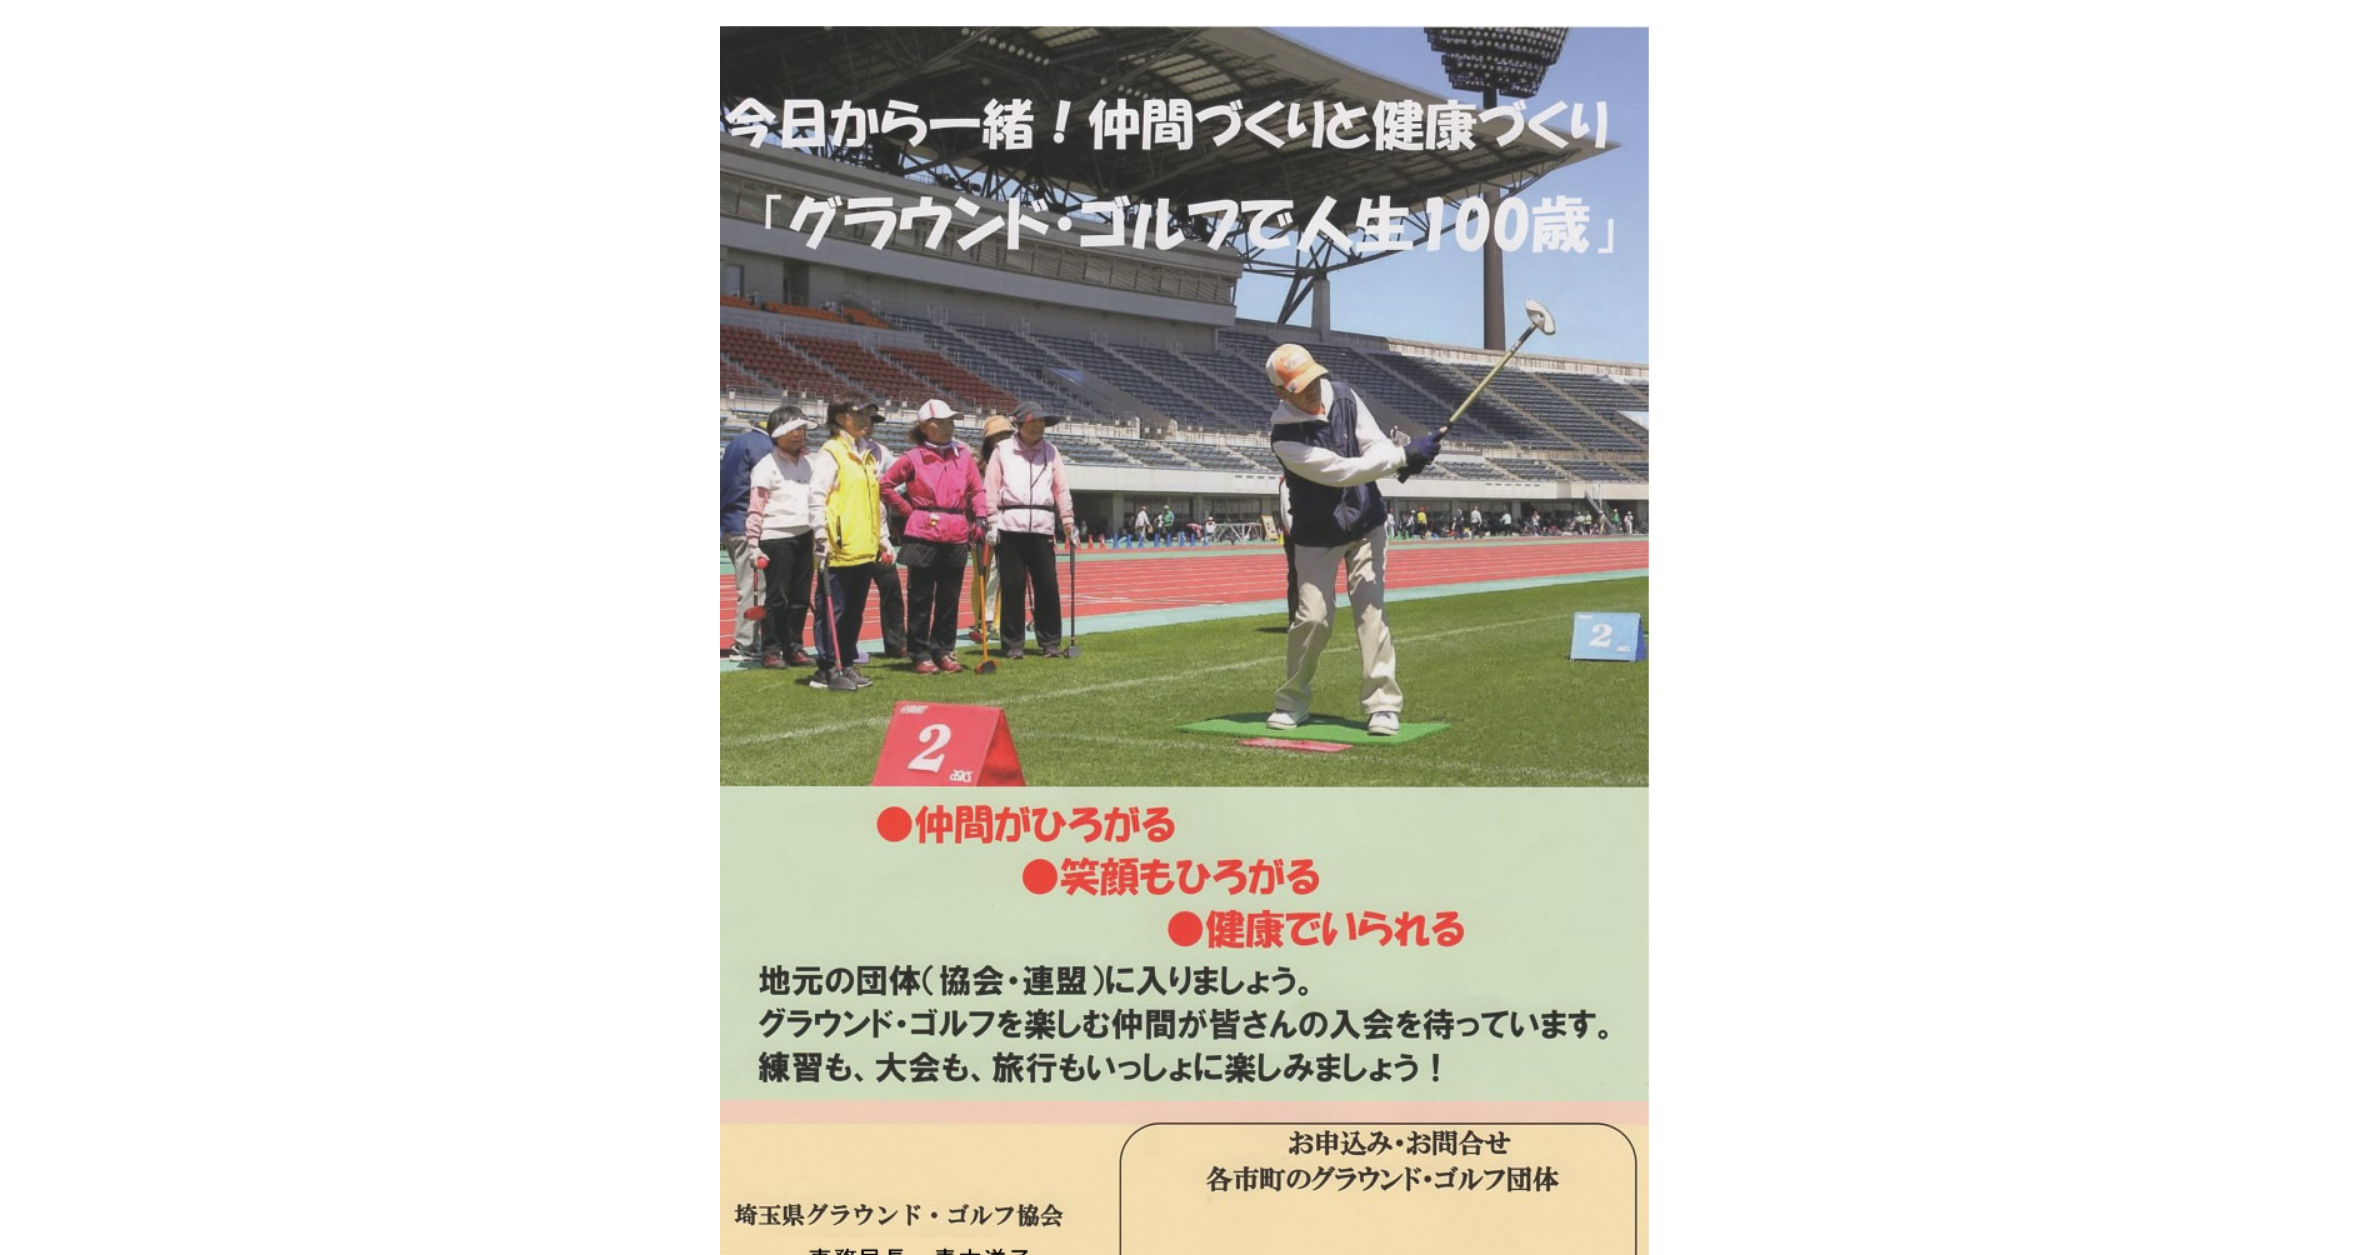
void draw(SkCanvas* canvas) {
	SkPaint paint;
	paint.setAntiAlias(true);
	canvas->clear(0xffffffff);
	canvas->drawImageRect(SkImages::DeferredFromEncodedData(SkData::MakeFromFileName("img1.png")), SkRect::MakeXYWH(720, 26, 930, 1229), SkSamplingOptions());
}
